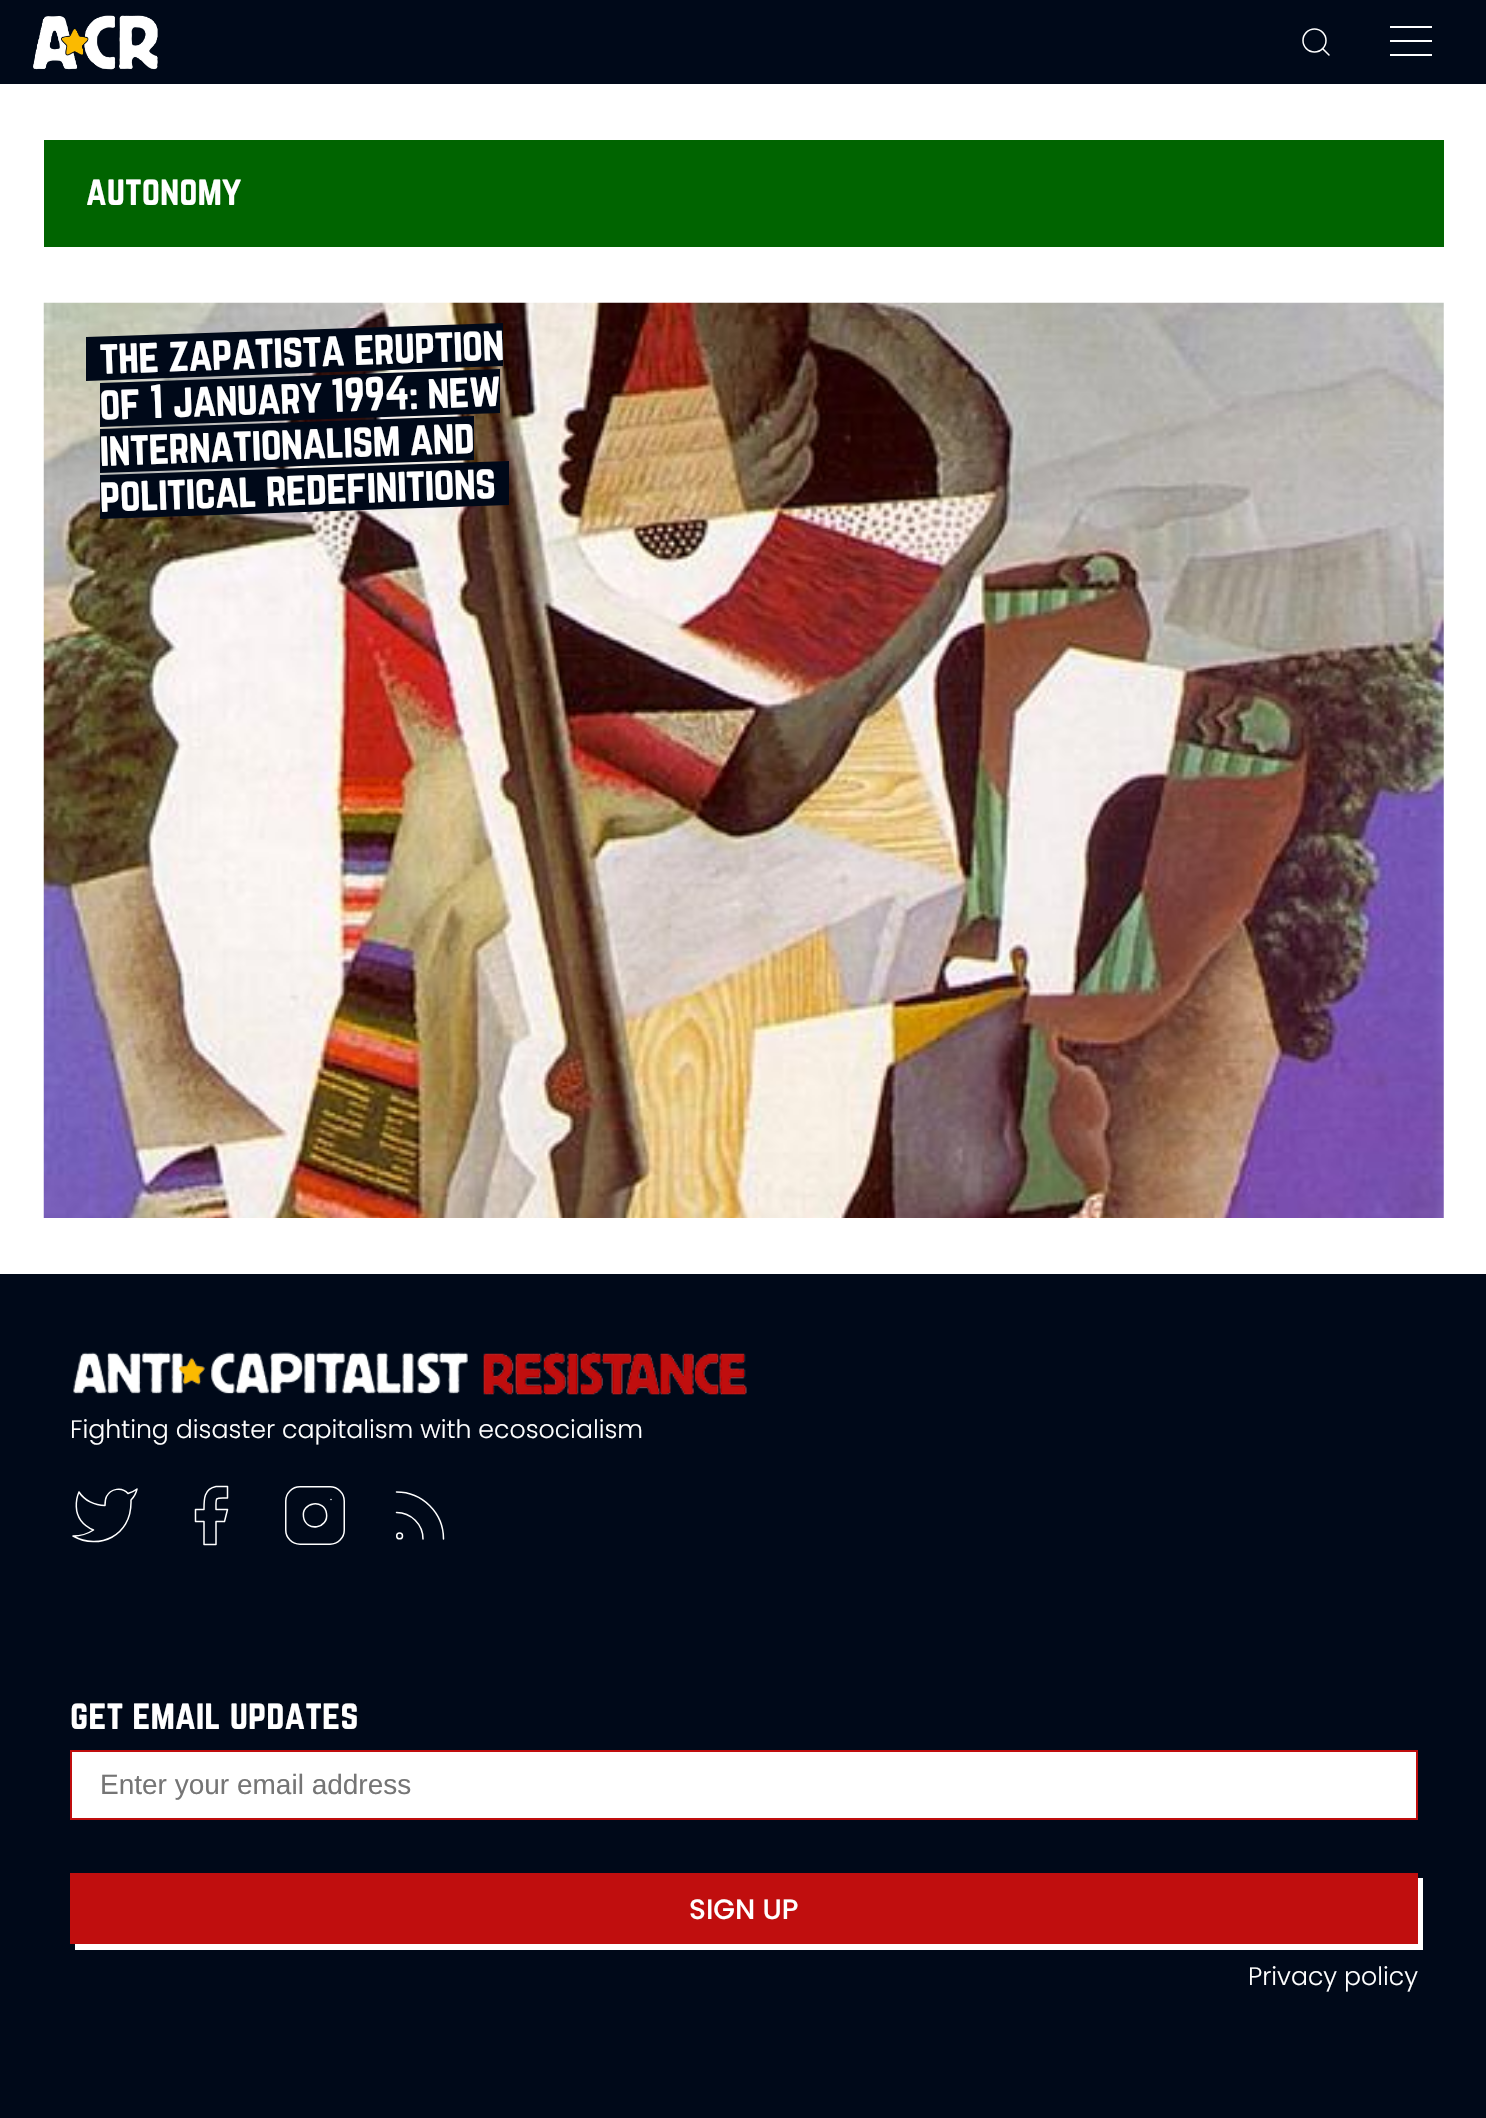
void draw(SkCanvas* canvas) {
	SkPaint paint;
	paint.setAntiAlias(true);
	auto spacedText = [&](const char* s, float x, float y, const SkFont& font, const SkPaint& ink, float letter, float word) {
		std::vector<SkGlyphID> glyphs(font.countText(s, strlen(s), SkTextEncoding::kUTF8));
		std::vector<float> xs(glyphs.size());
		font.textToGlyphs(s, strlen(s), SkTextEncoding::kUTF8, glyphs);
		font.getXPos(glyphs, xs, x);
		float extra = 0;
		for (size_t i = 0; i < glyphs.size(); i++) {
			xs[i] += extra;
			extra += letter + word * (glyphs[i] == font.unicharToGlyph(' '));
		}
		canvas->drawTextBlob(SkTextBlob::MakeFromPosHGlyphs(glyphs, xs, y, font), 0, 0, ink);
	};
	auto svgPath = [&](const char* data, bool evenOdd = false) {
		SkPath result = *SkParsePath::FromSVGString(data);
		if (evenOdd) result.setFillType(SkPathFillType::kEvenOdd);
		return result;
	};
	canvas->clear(0xffffffff);
	paint.setColor(0xff000919);
	canvas->drawRect(SkRect::MakeXYWH(0, 0, 1486, 84), paint);
	canvas->drawImageRect(SkImages::DeferredFromEncodedData(SkData::MakeFromFileName("img1.png")), SkRect::MakeXYWH(33, 15, 125, 55), SkSamplingOptions());
	paint.setStroke(true);
	paint.setStrokeWidth(1.5);
	paint.setColor(0xffffffff);
	canvas->drawCircle(1314.5, 40.5, 11.5, paint);
	paint.setStrokeCap(SkPaint::kRound_Cap);
	paint.setStrokeJoin(SkPaint::kRound_Join);
	canvas->drawPath(svgPath("M1329 55L1323 49"), paint);
	paint.setStroke(false);
	canvas->drawRect(SkRect::MakeXYWH(1390, 26, 42, 2), paint);
	canvas->drawRect(SkRect::MakeXYWH(1390, 40, 42, 2), paint);
	canvas->drawRect(SkRect::MakeXYWH(1390, 54, 42, 2), paint);
	paint.setColor(0xff006400);
	canvas->drawRect(SkRect::MakeXYWH(44, 140, 1400, 107), paint);
	SkFont f1(fontMgr->matchFamilyStyle("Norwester", SkFontStyle::Normal()), 36.5);
	f1.setSubpixel(true);
	paint.setColor(0xffffffff);
	canvas->drawString("autonomy", 86, 205, f1, paint);
	canvas->drawImageRect(SkImages::DeferredFromEncodedData(SkData::MakeFromFileName("img2.png")), SkRect::MakeXYWH(43, 302, 1401, 916), SkSamplingOptions());
	paint.setColor(0xff000919);
	canvas->drawPath(svgPath("M86 337L503 323V366L86 381Z"), paint);
	canvas->drawPath(svgPath("M100 383L500 369V413L100 427Z"), paint);
	SkFont f2(fontMgr->matchFamilyStyle("Norwester", SkFontStyle::Normal()), 42);
	f2.setSubpixel(true);
	paint.setColor(0xffffffff);
	canvas->save();
	canvas->rotate(-2, 100, 374);
	spacedText("the zapatista eruption", 100, 374, f2, paint, -0.8, 0);
	canvas->restore();
	paint.setColor(0xff000919);
	canvas->drawPath(svgPath("M100 429L474 416V460L100 473Z"), paint);
	paint.setColor(0xffffffff);
	canvas->save();
	canvas->rotate(-2, 100, 420);
	spacedText("of 1 january 1994: new", 100, 420, f2, paint, -0.8, 0);
	canvas->restore();
	paint.setColor(0xff000919);
	canvas->drawPath(svgPath("M100 475L509 461V505L100 519Z"), paint);
	paint.setColor(0xffffffff);
	canvas->save();
	canvas->rotate(-2, 100, 466);
	spacedText("internationalism and", 100, 466, f2, paint, -0.8, 0);
	canvas->restore();
	canvas->save();
	canvas->rotate(-2, 100, 512);
	spacedText("political redefinitions", 100, 512, f2, paint, -0.8, 0);
	canvas->restore();
	paint.setColor(0xff000919);
	canvas->drawRect(SkRect::MakeXYWH(0, 1274, 1486, 844), paint);
	canvas->drawImageRect(SkImages::DeferredFromEncodedData(SkData::MakeFromFileName("img3.png")), SkRect::MakeXYWH(73, 1352, 674, 43), SkSamplingOptions());
	SkFont f3(fontMgr->matchFamilyStyle("Poppins", SkFontStyle(300, SkFontStyle::kNormal_Width, SkFontStyle::kUpright_Slant)), 25.2);
	f3.setSubpixel(true);
	paint.setColor(0xffffffff);
	canvas->drawString("Fighting disaster capitalism with ecosocialism", 70, 1438, f3, paint);
	paint.setStroke(true);
	canvas->drawPath(svgPath("M137 1489C134.5 1491 131 1492.5 128 1493.5C122 1486.5 110.5 1488.5 106.5 1496.5C105 1499.5 105 1502.5 105 1505.5C94.5 1505.5 84.5 1500.5 79 1492C79 1492 67 1518.5 93.5 1530C87.5 1534 80 1536 73 1536C99 1550.5 131 1536 131 1502.5V1500C134 1497 136 1493.5 137 1489Z"), paint);
	canvas->drawPath(svgPath("M227.5 1486.5H216C203.5 1489 204 1500 204 1509.5H195.5V1521.5H204V1544.5H216V1521.5H224.5L227.5 1509.5H216C216 1496.5 214.5 1498 227.5 1498Z"), paint);
	paint.setStrokeCap(SkPaint::kButt_Cap);
	paint.setStrokeJoin(SkPaint::kMiter_Join);
	canvas->drawRoundRect(SkRect::MakeXYWH(285.75, 1486.75, 58.5, 57.5), 14.25, 14.25, paint);
	paint.setStrokeCap(SkPaint::kRound_Cap);
	paint.setStrokeJoin(SkPaint::kRound_Join);
	canvas->drawPath(svgPath("M396.5 1512.5C411 1512.5 423 1524.5 423 1539M396.5 1492C422.5 1492 443.5 1513 443.5 1539"), paint);
	canvas->drawPath(svgPath("M326.5 1513.5C329 1528.5 306 1532.5 303.5 1517C301 1502 324.5 1498.5 326.5 1513.5ZM331 1499.5H331"), paint);
	paint.setStrokeCap(SkPaint::kButt_Cap);
	paint.setStrokeJoin(SkPaint::kMiter_Join);
	canvas->drawCircle(399.6, 1535.9, 2.9, paint);
	paint.setStroke(false);
	canvas->drawString("get email updates", 70, 1729, f1, paint);
	canvas->drawRect(SkRect::MakeXYWH(71, 1751, 1346, 68), paint);
	paint.setStroke(true);
	paint.setStrokeWidth(2);
	paint.setColor(0xffc00e0e);
	canvas->drawRect(SkRect::MakeXYWH(71, 1751, 1346, 68), paint);
	SkFont f4(fontMgr->matchFamilyStyle("Liberation Sans", SkFontStyle::Normal()), 28);
	f4.setSubpixel(true);
	paint.setStroke(false);
	paint.setColor(0xff757575);
	canvas->drawString("Enter your email address", 100, 1794, f4, paint);
	paint.setColor(0xffffffff);
	canvas->drawPath(svgPath("M75 1944V1950H1423V1878H1418V1944Z"), paint);
	paint.setColor(0xffc00e0e);
	canvas->drawRect(SkRect::MakeXYWH(70, 1873, 1348, 71), paint);
	SkFont f5(fontMgr->matchFamilyStyle("Poppins", SkFontStyle(500, SkFontStyle::kNormal_Width, SkFontStyle::kUpright_Slant)), 28);
	f5.setSubpixel(true);
	paint.setColor(0xffffffff);
	canvas->drawString("SIGN UP", 689, 1919, f5, paint);
	canvas->drawString("Privacy policy", 1248, 1985, f3, paint);
}
